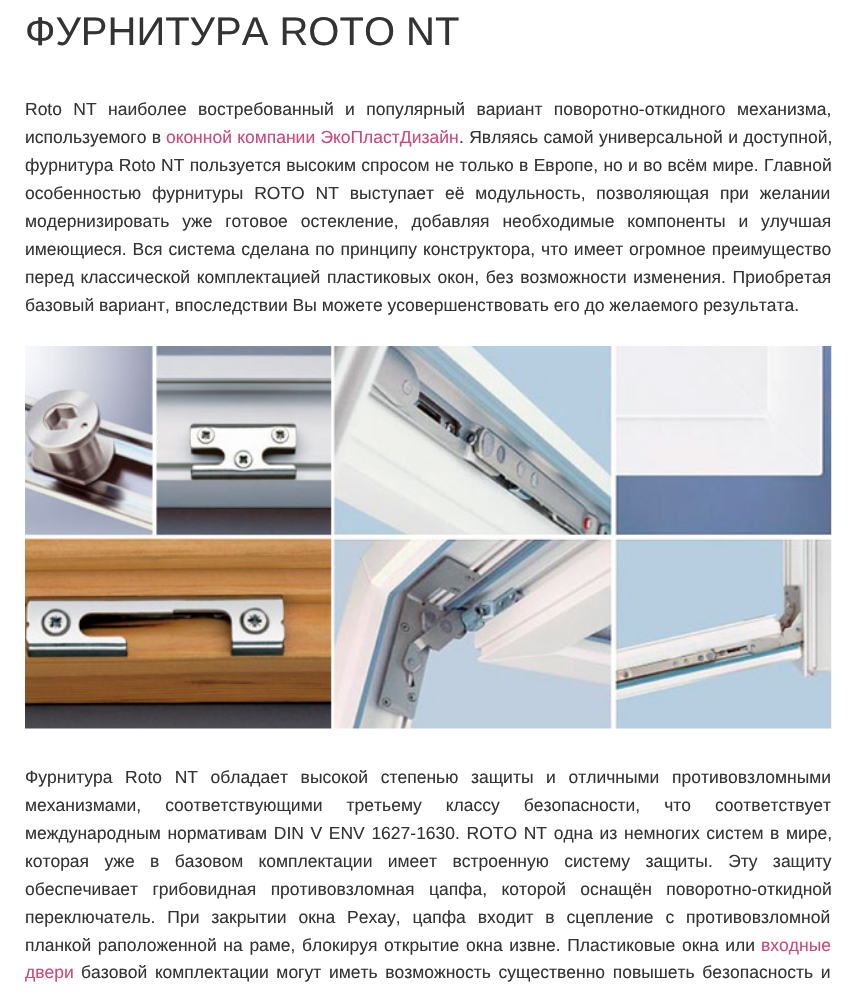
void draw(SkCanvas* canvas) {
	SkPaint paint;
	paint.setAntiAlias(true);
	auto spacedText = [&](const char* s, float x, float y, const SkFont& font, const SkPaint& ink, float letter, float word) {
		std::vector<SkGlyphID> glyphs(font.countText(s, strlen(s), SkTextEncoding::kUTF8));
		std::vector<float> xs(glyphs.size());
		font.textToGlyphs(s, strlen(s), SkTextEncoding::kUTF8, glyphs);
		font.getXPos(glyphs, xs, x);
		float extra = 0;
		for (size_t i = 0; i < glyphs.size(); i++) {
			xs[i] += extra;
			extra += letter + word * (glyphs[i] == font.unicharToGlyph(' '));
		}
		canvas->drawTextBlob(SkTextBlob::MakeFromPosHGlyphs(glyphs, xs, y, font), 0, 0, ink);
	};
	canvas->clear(0xffffffff);
	SkFont f1(fontMgr->matchFamilyStyle("Liberation Sans", SkFontStyle::Normal()), 40);
	f1.setSubpixel(true);
	paint.setColor(0xff333333);
	canvas->drawString("ФУРНИТУРА ROTO NT", 25, 45, f1, paint);
	SkFont f2(fontMgr->matchFamilyStyle("Liberation Sans", SkFontStyle::Normal()), 17.5);
	f2.setSubpixel(true);
	spacedText("Roto NT наиболее востребованный и популярный вариант поворотно-откидного механизма,", 25, 115, f2, paint, 0, 6.5);
	spacedText("используемого в", 25, 143, f2, paint, 0, 0.5);
	paint.setColor(0xffcf467b);
	spacedText("оконной компании ЭкоПластДизайн", 166, 143, f2, paint, 0, 0.5);
	paint.setColor(0xff333333);
	spacedText(". Являясь самой универсальной и доступной,", 459, 143, f2, paint, 0, 0.5);
	spacedText("фурнитура Roto NT пользуется высоким спросом не только в Европе, но и во всём мире. Главной", 25, 171, f2, paint, 0, 0.4);
	spacedText("особенностью фурнитуры ROTO NT выступает её модульность, позволяющая при желании", 25, 199, f2, paint, 0, 6);
	spacedText("модернизировать уже готовое остекление, добавляя необходимые компоненты и улучшая", 25, 227, f2, paint, 0, 8);
	spacedText("имеющиеся. Вся система сделана по принципу конструктора, что имеет огромное преимущество", 25, 255, f2, paint, 0, 1.1);
	spacedText("перед классической комплектацией пластиковых окон, без возможности изменения. Приобретая", 25, 283, f2, paint, 0, 1.75);
	canvas->drawString("базовый вариант, впоследствии Вы можете усовершенствовать его до желаемого результата.", 25, 311, f2, paint);
	canvas->drawImageRect(SkImages::DeferredFromEncodedData(SkData::MakeFromFileName("img1.png")), SkRect::MakeXYWH(25, 346, 807, 383), SkSamplingOptions());
	spacedText("Фурнитура Roto NT обладает высокой степенью защиты и отличными противовзломными", 25, 783, f2, paint, 0, 7.75);
	spacedText("механизмами, соответствующими третьему классу безопасности, что соответствует", 25, 811, f2, paint, 0, 19.25);
	spacedText("международным нормативам DIN V ENV 1627-1630. ROTO NT одна из немногих систем в мире,", 25, 839, f2, paint, 0, 1.75);
	spacedText("которая уже в базовом комплектации имеет встроенную систему защиты. Эту защиту", 25, 867, f2, paint, 0, 10.5);
	spacedText("обеспечивает грибовидная противовзломная цапфа, которой оснащён поворотно-откидной", 25, 895, f2, paint, 0, 9.5);
	spacedText("переключатель. При закрытии окна Рехау, цапфа входит в сцепление с противовзломной", 25, 923, f2, paint, 0, 7);
	spacedText("планкой раположенной на раме, блокируя открытие окна извне. Пластиковые окна или", 25, 951, f2, paint, 0, 1.75);
	paint.setColor(0xffcf467b);
	canvas->drawString("входные", 761, 951, f2, paint);
	canvas->drawString("двери", 25, 978, f2, paint);
	paint.setColor(0xff333333);
	spacedText("базовой комплектации могут иметь возможность существенно повышеть безопасность и", 81, 978, f2, paint, 0, 2.75);
}
